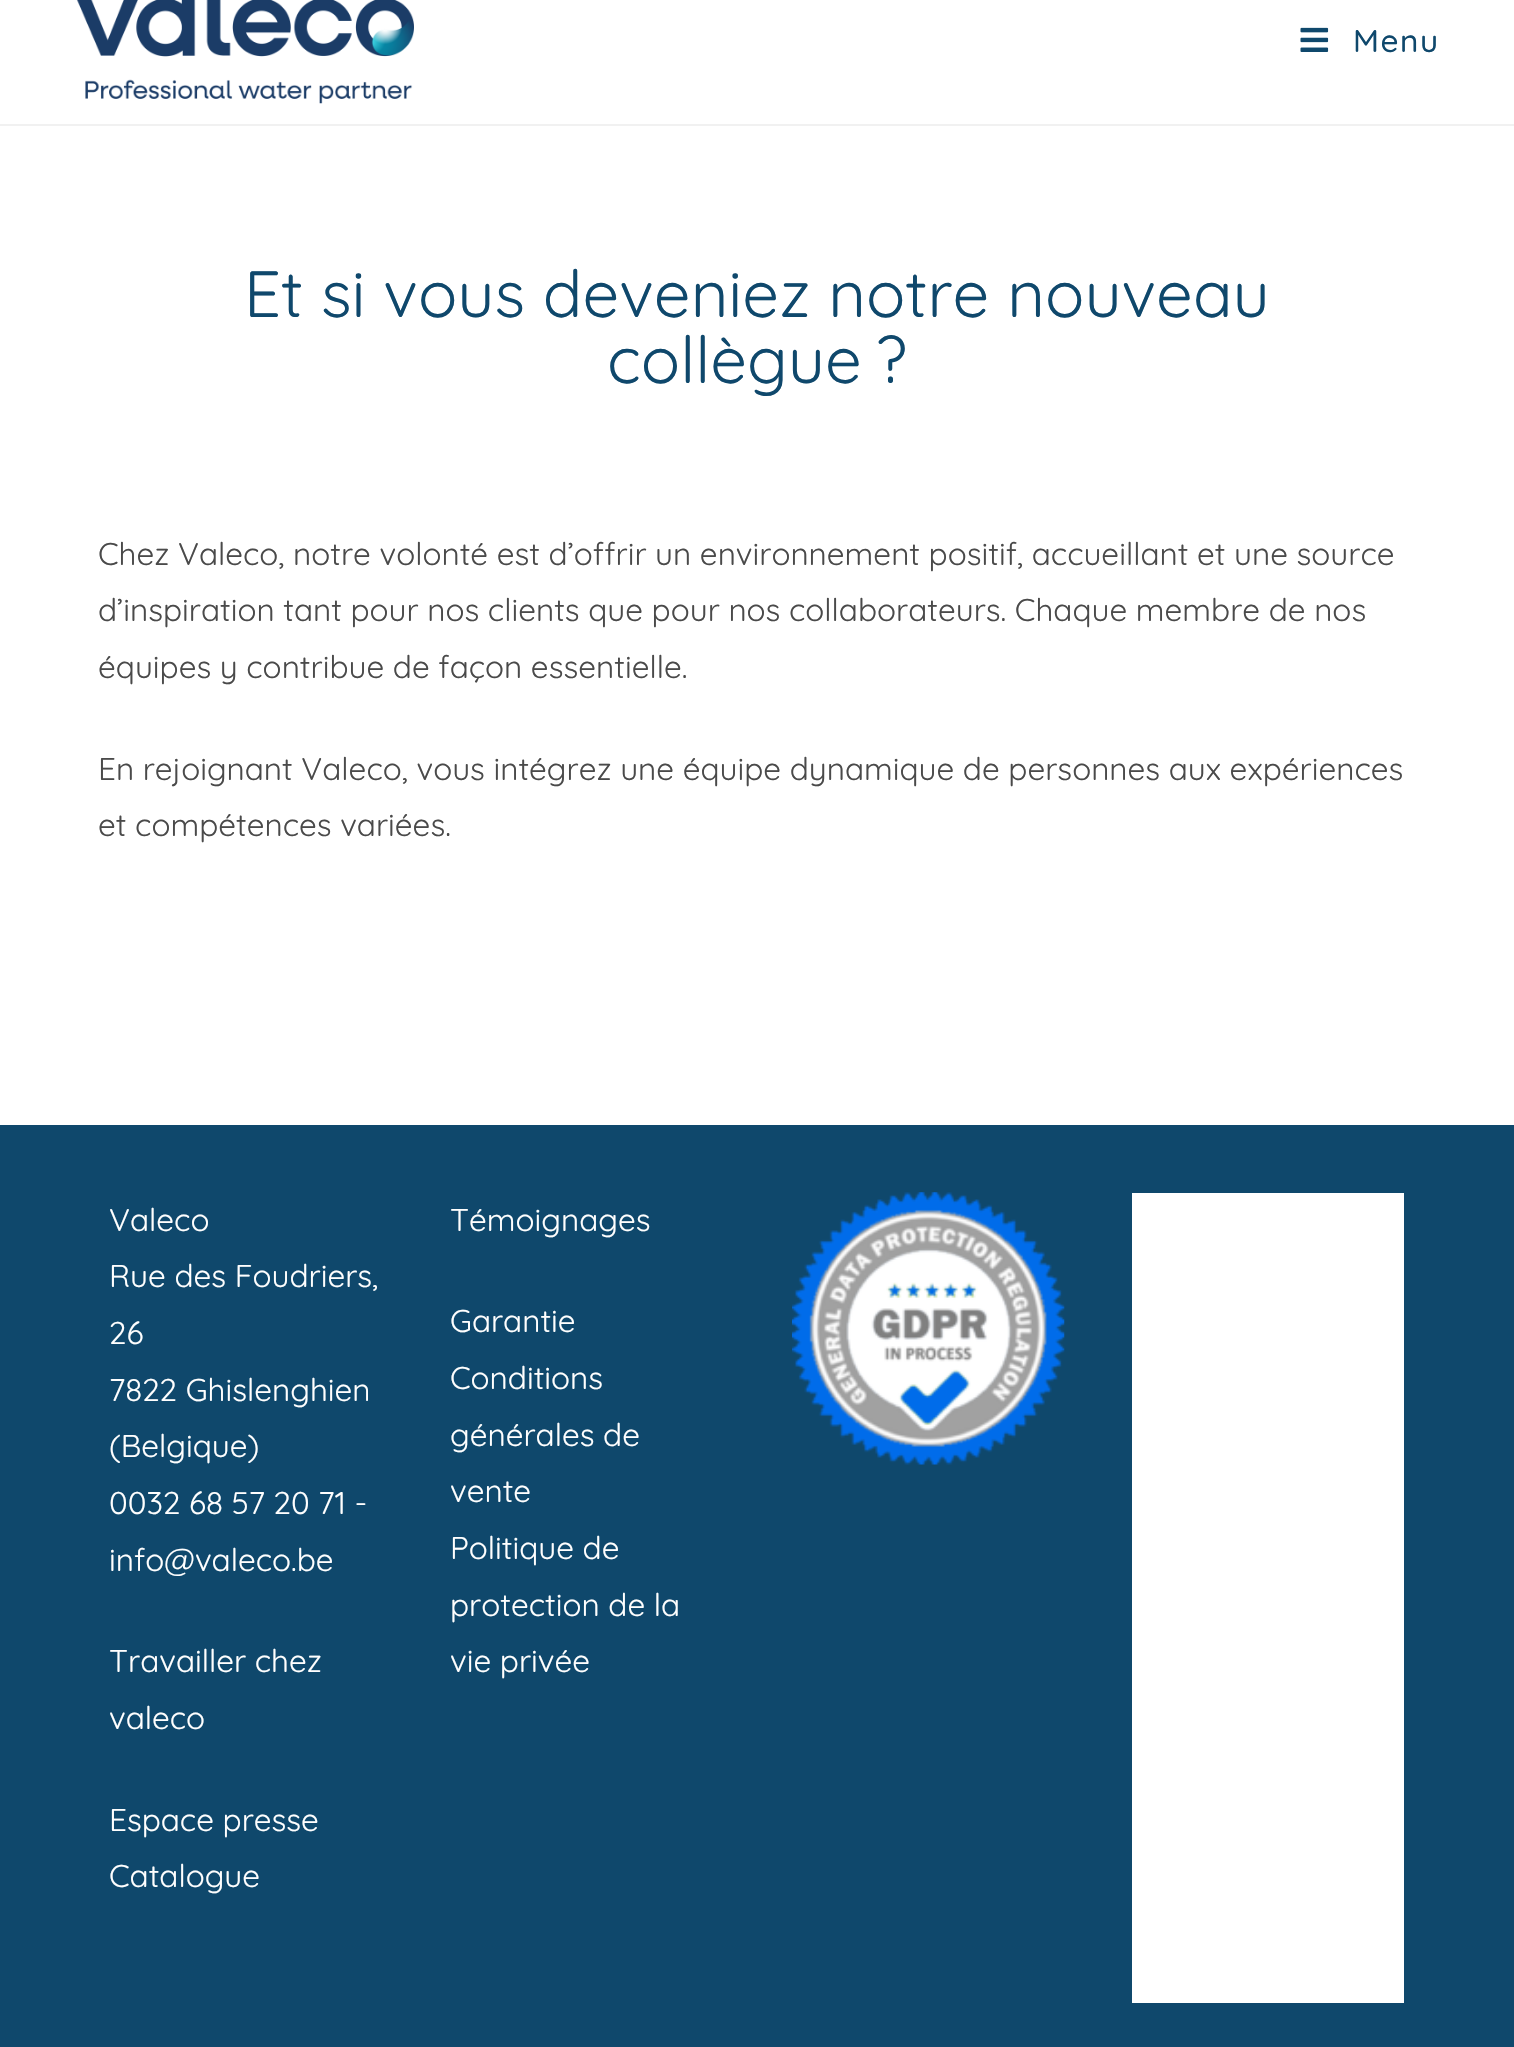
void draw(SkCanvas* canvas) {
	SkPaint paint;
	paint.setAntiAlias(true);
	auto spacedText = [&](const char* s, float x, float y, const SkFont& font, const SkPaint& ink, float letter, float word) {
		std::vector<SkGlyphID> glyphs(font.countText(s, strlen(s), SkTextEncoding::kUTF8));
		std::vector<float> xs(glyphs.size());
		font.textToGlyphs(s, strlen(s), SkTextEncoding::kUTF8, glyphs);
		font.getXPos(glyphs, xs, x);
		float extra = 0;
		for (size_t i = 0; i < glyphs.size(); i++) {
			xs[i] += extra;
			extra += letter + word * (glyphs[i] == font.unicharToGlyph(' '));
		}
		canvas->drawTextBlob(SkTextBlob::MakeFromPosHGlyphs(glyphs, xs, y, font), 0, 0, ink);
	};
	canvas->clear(0xffffffff);
	paint.setColor(0xfff1f1f1);
	canvas->drawRect(SkRect::MakeXYWH(0, 124, 1514, 2), paint);
	canvas->drawImageRect(SkImages::DeferredFromEncodedData(SkData::MakeFromFileName("img1.png")), SkRect::MakeXYWH(76, 0, 338, 104), SkSamplingOptions());
	canvas->drawImageRect(SkImages::DeferredFromEncodedData(SkData::MakeFromFileName("img2.png")), SkRect::MakeXYWH(1300, 27, 29, 25), SkSamplingOptions());
	SkFont f1(fontMgr->matchFamilyStyle("Quicksand", SkFontStyle(500, SkFontStyle::kNormal_Width, SkFontStyle::kUpright_Slant)), 31.5);
	f1.setSubpixel(true);
	paint.setColor(0xff0f486c);
	spacedText("Menu", 1353, 52, f1, paint, 1.5, 0);
	SkFont f2(fontMgr->matchFamilyStyle("Quicksand", SkFontStyle::Normal()), 65.25);
	f2.setSubpixel(true);
	canvas->drawString("Et si vous deveniez notre nouveau", 244, 317, f2, paint);
	canvas->drawString("collègue ?", 607, 383, f2, paint);
	SkFont f3(fontMgr->matchFamilyStyle("Quicksand", SkFontStyle::Normal()), 31.5);
	f3.setSubpixel(true);
	paint.setColor(0xff4a4a4a);
	canvas->drawString("Chez Valeco, notre volonté est d’offrir un environnement positif, accueillant et une source", 98, 565, f3, paint);
	canvas->drawString("d’inspiration tant pour nos clients que pour nos collaborateurs. Chaque membre de nos", 98, 621, f3, paint);
	canvas->drawString("équipes y contribue de façon essentielle.", 98, 678, f3, paint);
	canvas->drawString("En rejoignant Valeco, vous intégrez une équipe dynamique de personnes aux expériences", 98, 780, f3, paint);
	canvas->drawString("et compétences variées.", 98, 836, f3, paint);
	paint.setColor(0xff0f486c);
	canvas->drawRect(SkRect::MakeXYWH(0, 1125, 1514, 922), paint);
	paint.setColor(0xffffffff);
	canvas->drawString("Valeco", 109, 1231, f3, paint);
	canvas->drawString("Rue des Foudriers,", 109, 1287, f3, paint);
	canvas->drawString("26", 109, 1344, f3, paint);
	canvas->drawString("7822 Ghislenghien", 109, 1401, f3, paint);
	canvas->drawString("(Belgique)", 109, 1457, f3, paint);
	canvas->drawString("0032 68 57 20 71 -", 109, 1514, f3, paint);
	canvas->drawString("info@valeco.be", 109, 1571, f3, paint);
	canvas->drawString("Travailler chez", 109, 1672, f3, paint);
	canvas->drawString("valeco", 109, 1729, f3, paint);
	canvas->drawString("Espace presse", 109, 1831, f3, paint);
	canvas->drawString("Catalogue", 109, 1887, f3, paint);
	canvas->drawString("Témoignages", 450, 1231, f3, paint);
	canvas->drawString("Garantie", 450, 1332, f3, paint);
	canvas->drawString("Conditions", 450, 1389, f3, paint);
	canvas->drawString("générales de", 450, 1446, f3, paint);
	canvas->drawString("vente", 450, 1502, f3, paint);
	canvas->drawString("Politique de", 450, 1559, f3, paint);
	canvas->drawString("protection de la", 450, 1616, f3, paint);
	canvas->drawString("vie privée", 450, 1672, f3, paint);
	canvas->drawImageRect(SkImages::DeferredFromEncodedData(SkData::MakeFromFileName("img3.png")), SkRect::MakeXYWH(792, 1192, 273, 273), SkSamplingOptions());
	canvas->drawRect(SkRect::MakeXYWH(1132, 1193, 272, 810), paint);
}
